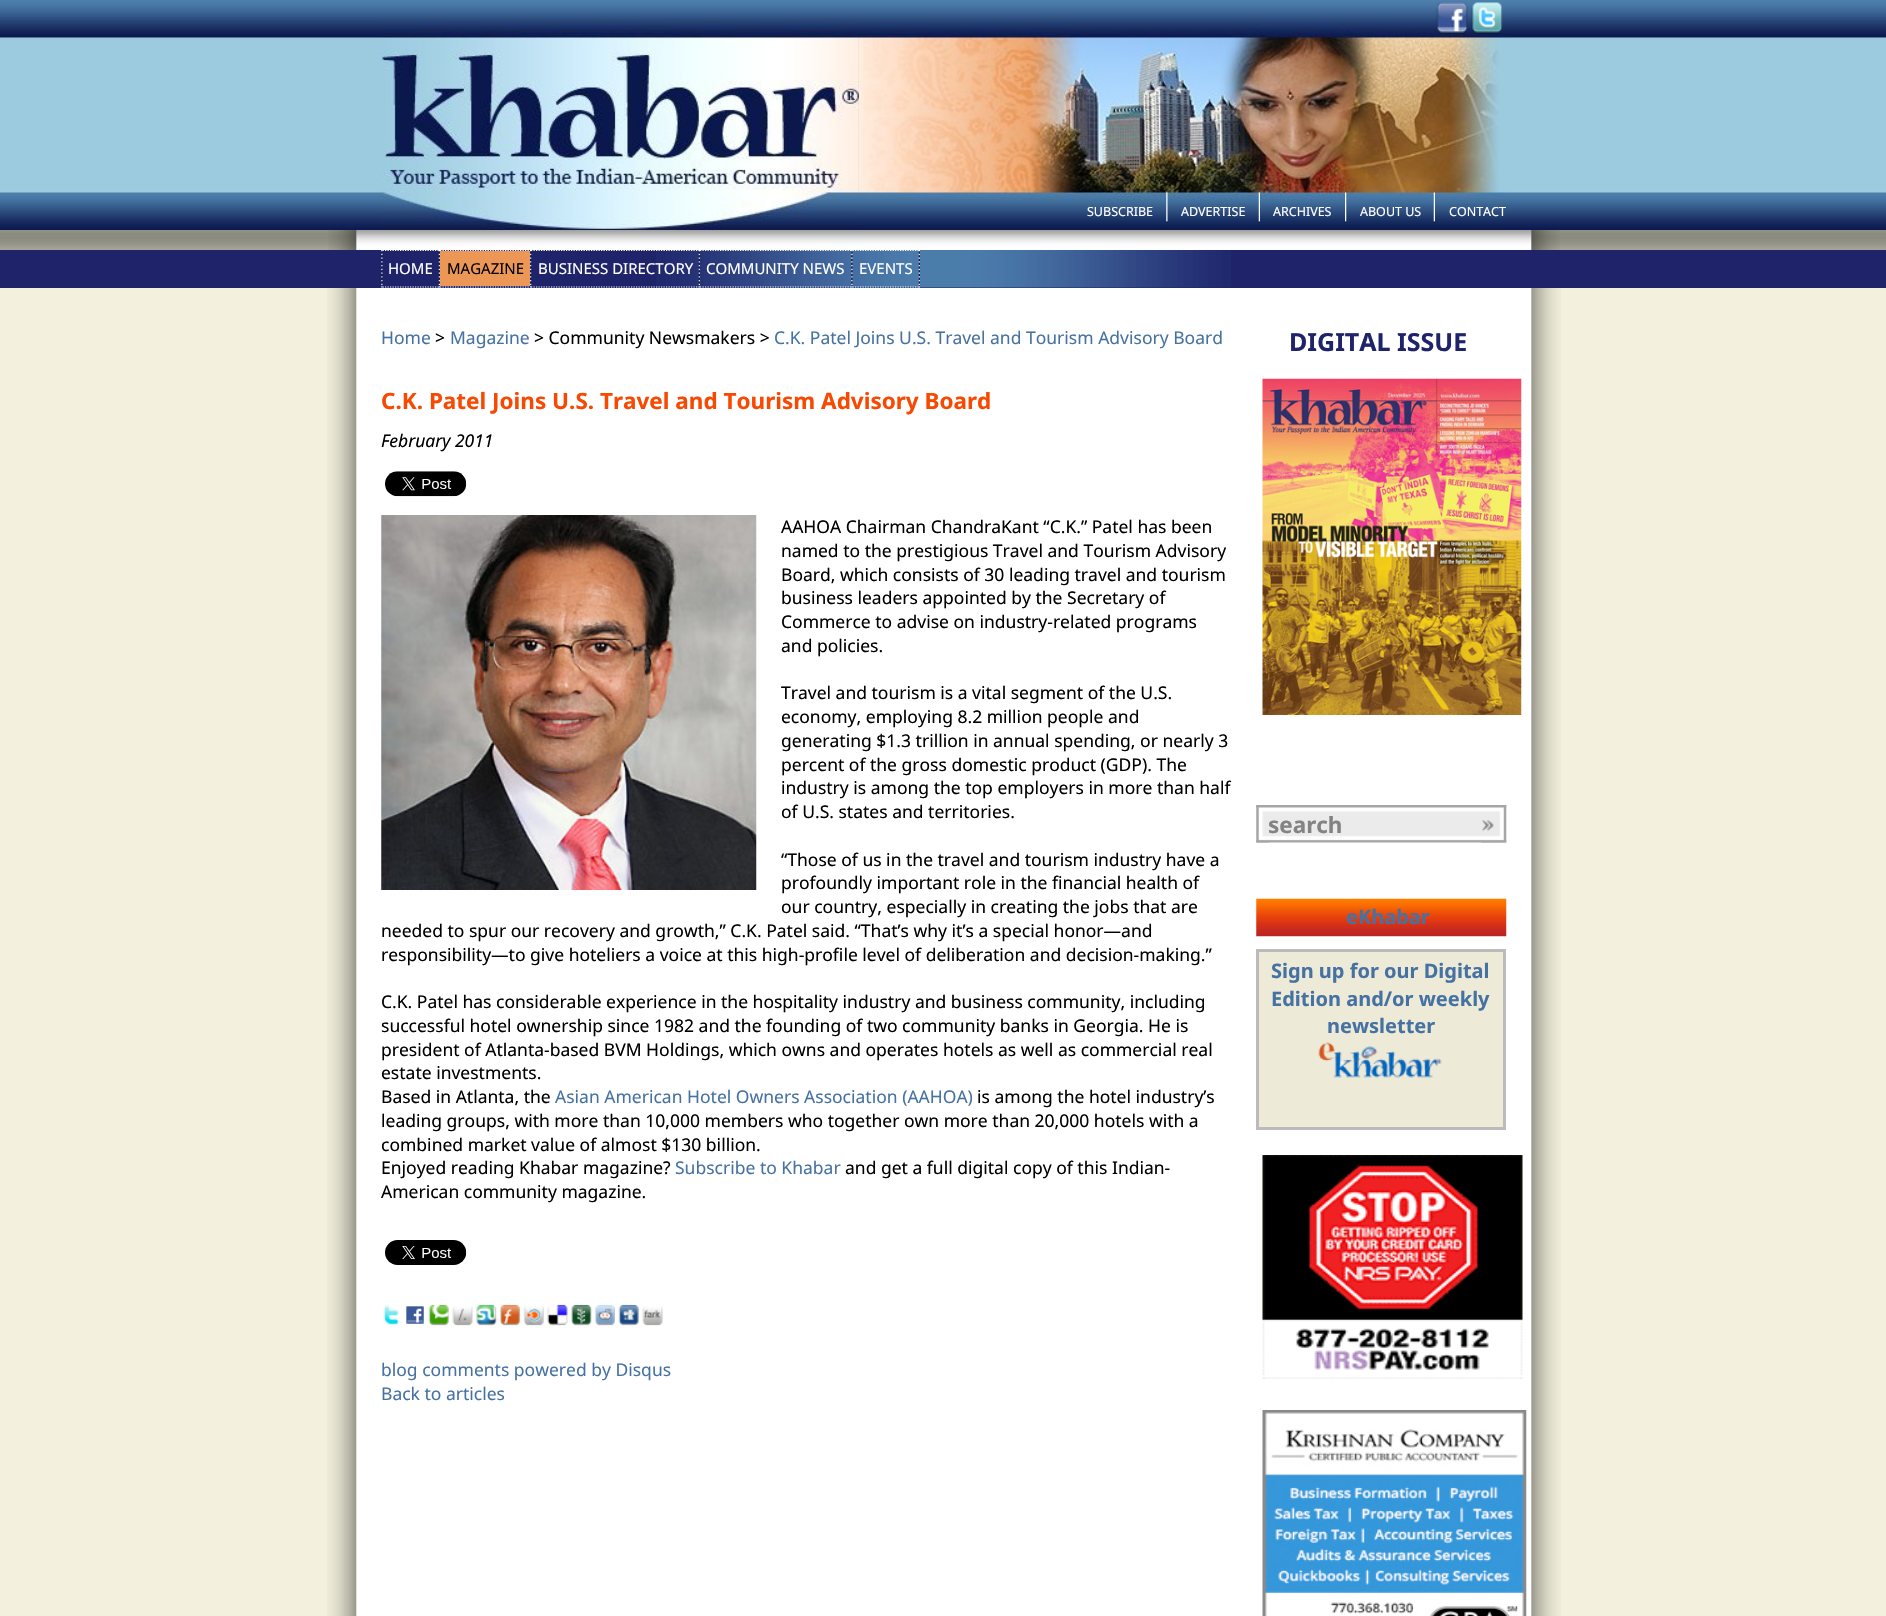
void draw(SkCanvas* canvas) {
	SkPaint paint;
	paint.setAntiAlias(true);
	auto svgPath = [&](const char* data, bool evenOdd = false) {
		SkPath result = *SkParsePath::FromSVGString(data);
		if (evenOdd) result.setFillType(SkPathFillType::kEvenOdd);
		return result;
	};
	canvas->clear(0xfff3f1dd);
	canvas->drawImageRect(SkImages::DeferredFromEncodedData(SkData::MakeFromFileName("img1.png")), SkRect::MakeXYWH(327, 288, 1234, 1328), SkSamplingOptions());
	canvas->drawImageRect(SkImages::DeferredFromEncodedData(SkData::MakeFromFileName("img2.png")), SkRect::MakeXYWH(0, 0, 1886, 230), SkSamplingOptions());
	canvas->drawImageRect(SkImages::DeferredFromEncodedData(SkData::MakeFromFileName("img3.png")), SkRect::MakeXYWH(858, 19, 648, 211), SkSamplingOptions());
	canvas->drawImageRect(SkImages::DeferredFromEncodedData(SkData::MakeFromFileName("img4.png")), SkRect::MakeXYWH(381, 19, 478, 211), SkSamplingOptions());
	canvas->drawImageRect(SkImages::DeferredFromEncodedData(SkData::MakeFromFileName("img5.png")), SkRect::MakeXYWH(1436, 2, 32, 32), SkSamplingOptions());
	canvas->drawImageRect(SkImages::DeferredFromEncodedData(SkData::MakeFromFileName("img6.png")), SkRect::MakeXYWH(1471, 2, 32, 32), SkSamplingOptions());
	SkFont f1(fontMgr->matchFamilyStyle("Noto Sans", SkFontStyle::Normal()), 12.5);
	f1.setSubpixel(true);
	paint.setColor(0xffffffff);
	canvas->drawString("SUBSCRIBE", 1087, 216, f1, paint);
	canvas->drawImageRect(SkImages::DeferredFromEncodedData(SkData::MakeFromFileName("img7.png")), SkRect::MakeXYWH(1166, 192, 2, 38), SkSamplingOptions());
	canvas->drawString("ADVERTISE", 1181, 216, f1, paint);
	canvas->drawImageRect(SkImages::DeferredFromEncodedData(SkData::MakeFromFileName("img8.png")), SkRect::MakeXYWH(1258, 192, 2, 38), SkSamplingOptions());
	canvas->drawString("ARCHIVES", 1273, 216, f1, paint);
	canvas->drawImageRect(SkImages::DeferredFromEncodedData(SkData::MakeFromFileName("img9.png")), SkRect::MakeXYWH(1345, 192, 2, 38), SkSamplingOptions());
	canvas->drawString("ABOUT US", 1360, 216, f1, paint);
	canvas->drawImageRect(SkImages::DeferredFromEncodedData(SkData::MakeFromFileName("img10.png")), SkRect::MakeXYWH(1433, 192, 2, 38), SkSamplingOptions());
	canvas->drawString("CONTACT", 1449, 216, f1, paint);
	canvas->drawImageRect(SkImages::DeferredFromEncodedData(SkData::MakeFromFileName("img11.png")), SkRect::MakeXYWH(0, 230, 1886, 20), SkSamplingOptions());
	canvas->drawImageRect(SkImages::DeferredFromEncodedData(SkData::MakeFromFileName("img12.png")), SkRect::MakeXYWH(328, 230, 1232, 20), SkSamplingOptions());
	paint.setColor(0xff1e236a);
	canvas->drawRect(SkRect::MakeXYWH(0, 250, 1886, 38), paint);
	canvas->drawImageRect(SkImages::DeferredFromEncodedData(SkData::MakeFromFileName("img13.png")), SkRect::MakeXYWH(656, 250, 575, 38), SkSamplingOptions());
	canvas->drawImageRect(SkImages::DeferredFromEncodedData(SkData::MakeFromFileName("img14.png")), SkRect::MakeXYWH(381, 250, 2, 38), SkSamplingOptions());
	paint.setStroke(true);
	paint.setStrokeWidth(1.2);
	paint.setColor(0xffffffff);
	paint.setPathEffect(SkDashPathEffect::Make({{1.25f, 1.25f}}, 0));
	canvas->drawPath(svgPath("M382.5 250.5H439M382.5 287H439"), paint);
	paint.setPathEffect(nullptr);
	SkFont f2(fontMgr->matchFamilyStyle("Noto Sans", SkFontStyle::Normal()), 15);
	f2.setSubpixel(true);
	paint.setStroke(false);
	canvas->drawString("HOME", 388, 274, f2, paint);
	canvas->drawImageRect(SkImages::DeferredFromEncodedData(SkData::MakeFromFileName("img15.png")), SkRect::MakeXYWH(438, 250, 2, 38), SkSamplingOptions());
	paint.setStroke(true);
	paint.setPathEffect(SkDashPathEffect::Make({{1.25f, 1.25f}}, 0));
	canvas->drawPath(svgPath("M440 250.5H530"), paint);
	paint.setPathEffect(nullptr);
	paint.setPathEffect(SkDashPathEffect::Make({{1.25f, 1.25f}}, 0));
	canvas->drawPath(svgPath("M440 287H530"), paint);
	paint.setPathEffect(nullptr);
	paint.setStroke(false);
	paint.setColor(0xffec9756);
	canvas->drawRect(SkRect::MakeXYWH(440, 251, 90, 35), paint);
	paint.setColor(0xff000000);
	canvas->drawString("MAGAZINE", 447, 274, f2, paint);
	canvas->drawImageRect(SkImages::DeferredFromEncodedData(SkData::MakeFromFileName("img16.png")), SkRect::MakeXYWH(530, 250, 2, 38), SkSamplingOptions());
	paint.setStroke(true);
	paint.setColor(0xffffffff);
	paint.setPathEffect(SkDashPathEffect::Make({{1.25f, 1.25f}}, 0));
	canvas->drawPath(svgPath("M531 250.5H699"), paint);
	paint.setPathEffect(nullptr);
	paint.setPathEffect(SkDashPathEffect::Make({{1.25f, 1.25f}}, 0));
	canvas->drawPath(svgPath("M531 287H699"), paint);
	paint.setPathEffect(nullptr);
	paint.setStroke(false);
	canvas->drawString("BUSINESS DIRECTORY", 538, 274, f2, paint);
	canvas->drawImageRect(SkImages::DeferredFromEncodedData(SkData::MakeFromFileName("img17.png")), SkRect::MakeXYWH(698, 250, 2, 38), SkSamplingOptions());
	paint.setStroke(true);
	paint.setPathEffect(SkDashPathEffect::Make({{1.25f, 1.25f}}, 0));
	canvas->drawPath(svgPath("M700 250.5H851"), paint);
	paint.setPathEffect(nullptr);
	paint.setPathEffect(SkDashPathEffect::Make({{1.25f, 1.25f}}, 0));
	canvas->drawPath(svgPath("M700 287H851"), paint);
	paint.setPathEffect(nullptr);
	paint.setStroke(false);
	canvas->drawString("COMMUNITY NEWS", 706, 274, f2, paint);
	canvas->drawImageRect(SkImages::DeferredFromEncodedData(SkData::MakeFromFileName("img18.png")), SkRect::MakeXYWH(851, 250, 2, 38), SkSamplingOptions());
	paint.setStroke(true);
	paint.setPathEffect(SkDashPathEffect::Make({{1.25f, 1.25f}}, 0));
	canvas->drawPath(svgPath("M852.5 250.5H919"), paint);
	paint.setPathEffect(nullptr);
	paint.setPathEffect(SkDashPathEffect::Make({{1.25f, 1.25f}}, 0));
	canvas->drawPath(svgPath("M852.5 287H919"), paint);
	paint.setPathEffect(nullptr);
	paint.setStroke(false);
	canvas->drawString("EVENTS", 859, 274, f2, paint);
	canvas->drawImageRect(SkImages::DeferredFromEncodedData(SkData::MakeFromFileName("img19.png")), SkRect::MakeXYWH(918, 250, 2, 38), SkSamplingOptions());
	SkFont f3(fontMgr->matchFamilyStyle("Noto Sans", SkFontStyle::Normal()), 17.5);
	f3.setSubpixel(true);
	paint.setColor(0xff4672a3);
	canvas->drawString("Home", 381, 344, f3, paint);
	paint.setColor(0xff000000);
	canvas->drawString(">", 435, 344, f3, paint);
	paint.setColor(0xff4672a3);
	canvas->drawString("Magazine", 450, 344, f3, paint);
	paint.setColor(0xff000000);
	canvas->drawString("> Community Newsmakers >", 534, 344, f3, paint);
	paint.setColor(0xff4672a3);
	canvas->drawString("C.K. Patel Joins U.S. Travel and Tourism Advisory Board", 774, 344, f3, paint);
	SkFont f4(fontMgr->matchFamilyStyle("Noto Sans", SkFontStyle::Bold()), 22.5);
	f4.setSubpixel(true);
	paint.setColor(0xfff84902);
	canvas->drawString("C.K. Patel Joins U.S. Travel and Tourism Advisory Board", 381, 409, f4, paint);
	SkFont f5(fontMgr->matchFamilyStyle("Noto Sans", SkFontStyle::Italic()), 17.5);
	f5.setSubpixel(true);
	paint.setColor(0xff000000);
	canvas->drawString("February 2011", 381, 447, f5, paint);
	canvas->drawImageRect(SkImages::DeferredFromEncodedData(SkData::MakeFromFileName("img20.png")), SkRect::MakeXYWH(385, 471, 82, 26), SkSamplingOptions());
	canvas->drawImageRect(SkImages::DeferredFromEncodedData(SkData::MakeFromFileName("img21.png")), SkRect::MakeXYWH(381, 515, 376, 375), SkSamplingOptions());
	canvas->drawString("AAHOA Chairman ChandraKant “C.K.” Patel has been", 781, 533, f3, paint);
	canvas->drawString("named to the prestigious Travel and Tourism Advisory", 781, 557, f3, paint);
	canvas->drawString("Board, which consists of 30 leading travel and tourism", 781, 581, f3, paint);
	canvas->drawString("business leaders appointed by the Secretary of", 781, 604, f3, paint);
	canvas->drawString("Commerce to advise on industry-related programs", 781, 628, f3, paint);
	canvas->drawString("and policies.", 781, 652, f3, paint);
	canvas->drawString("Travel and tourism is a vital segment of the U.S.", 781, 699, f3, paint);
	canvas->drawString("economy, employing 8.2 million people and", 781, 723, f3, paint);
	canvas->drawString("generating $1.3 trillion in annual spending, or nearly 3", 781, 747, f3, paint);
	canvas->drawString("percent of the gross domestic product (GDP). The", 781, 771, f3, paint);
	canvas->drawString("industry is among the top employers in more than half", 781, 794, f3, paint);
	canvas->drawString("of U.S. states and territories.", 781, 818, f3, paint);
	canvas->drawString("“Those of us in the travel and tourism industry have a", 781, 866, f3, paint);
	canvas->drawString("profoundly important role in the financial health of", 781, 889, f3, paint);
	canvas->drawString("our country, especially in creating the jobs that are", 781, 913, f3, paint);
	canvas->drawString("needed to spur our recovery and growth,” C.K. Patel said. “That’s why it’s a special honor—and", 381, 937, f3, paint);
	canvas->drawString("responsibility—to give hoteliers a voice at this high-profile level of deliberation and decision-making.”", 381, 961, f3, paint);
	canvas->drawString("C.K. Patel has considerable experience in the hospitality industry and business community, including", 381, 1008, f3, paint);
	canvas->drawString("successful hotel ownership since 1982 and the founding of two community banks in Georgia. He is", 381, 1032, f3, paint);
	canvas->drawString("president of Atlanta-based BVM Holdings, which owns and operates hotels as well as commercial real", 381, 1056, f3, paint);
	canvas->drawString("estate investments.", 381, 1079, f3, paint);
	canvas->drawString("Based in Atlanta, the", 381, 1103, f3, paint);
	paint.setColor(0xff4672a3);
	canvas->drawString("Asian American Hotel Owners Association (AAHOA)", 555, 1103, f3, paint);
	paint.setColor(0xff000000);
	canvas->drawString("is among the hotel industry’s", 977, 1103, f3, paint);
	canvas->drawString("leading groups, with more than 10,000 members who together own more than 20,000 hotels with a", 381, 1127, f3, paint);
	canvas->drawString("combined market value of almost $130 billion.", 381, 1151, f3, paint);
	canvas->drawString("Enjoyed reading Khabar magazine?", 381, 1174, f3, paint);
	paint.setColor(0xff4672a3);
	canvas->drawString("Subscribe to Khabar", 675, 1174, f3, paint);
	paint.setColor(0xff000000);
	canvas->drawString("and get a full digital copy of this Indian-", 845, 1174, f3, paint);
	canvas->drawString("American community magazine.", 381, 1198, f3, paint);
	canvas->drawImageRect(SkImages::DeferredFromEncodedData(SkData::MakeFromFileName("img22.png")), SkRect::MakeXYWH(385, 1240, 82, 25), SkSamplingOptions());
	canvas->drawImageRect(SkImages::DeferredFromEncodedData(SkData::MakeFromFileName("img23.png")), SkRect::MakeXYWH(383, 1305, 16, 21), SkSamplingOptions());
	canvas->drawImageRect(SkImages::DeferredFromEncodedData(SkData::MakeFromFileName("img24.png")), SkRect::MakeXYWH(406, 1306, 18, 18), SkSamplingOptions());
	canvas->drawImageRect(SkImages::DeferredFromEncodedData(SkData::MakeFromFileName("img25.png")), SkRect::MakeXYWH(428, 1304, 21, 22), SkSamplingOptions());
	canvas->drawImageRect(SkImages::DeferredFromEncodedData(SkData::MakeFromFileName("img26.png")), SkRect::MakeXYWH(452, 1306, 21, 20), SkSamplingOptions());
	canvas->drawImageRect(SkImages::DeferredFromEncodedData(SkData::MakeFromFileName("img27.png")), SkRect::MakeXYWH(476, 1304, 21, 22), SkSamplingOptions());
	canvas->drawImageRect(SkImages::DeferredFromEncodedData(SkData::MakeFromFileName("img28.png")), SkRect::MakeXYWH(500, 1304, 20, 22), SkSamplingOptions());
	canvas->drawImageRect(SkImages::DeferredFromEncodedData(SkData::MakeFromFileName("img29.png")), SkRect::MakeXYWH(523, 1306, 21, 20), SkSamplingOptions());
	canvas->drawImageRect(SkImages::DeferredFromEncodedData(SkData::MakeFromFileName("img30.png")), SkRect::MakeXYWH(547, 1304, 21, 22), SkSamplingOptions());
	canvas->drawImageRect(SkImages::DeferredFromEncodedData(SkData::MakeFromFileName("img31.png")), SkRect::MakeXYWH(571, 1304, 21, 22), SkSamplingOptions());
	canvas->drawImageRect(SkImages::DeferredFromEncodedData(SkData::MakeFromFileName("img32.png")), SkRect::MakeXYWH(595, 1305, 20, 21), SkSamplingOptions());
	canvas->drawImageRect(SkImages::DeferredFromEncodedData(SkData::MakeFromFileName("img33.png")), SkRect::MakeXYWH(618, 1304, 21, 22), SkSamplingOptions());
	canvas->drawImageRect(SkImages::DeferredFromEncodedData(SkData::MakeFromFileName("img34.png")), SkRect::MakeXYWH(642, 1306, 21, 20), SkSamplingOptions());
	paint.setColor(0xff4672a3);
	canvas->drawString("blog comments powered by Disqus", 381, 1376, f3, paint);
	canvas->drawString("Back to articles", 381, 1400, f3, paint);
	SkFont f6(fontMgr->matchFamilyStyle("Noto Sans", SkFontStyle::Bold()), 25);
	f6.setSubpixel(true);
	paint.setColor(0xff1e236a);
	canvas->drawString("DIGITAL ISSUE", 1289, 351, f6, paint);
	canvas->drawImageRect(SkImages::DeferredFromEncodedData(SkData::MakeFromFileName("img35.png")), SkRect::MakeXYWH(1262, 378, 260, 337), SkSamplingOptions());
	canvas->drawImageRect(SkImages::DeferredFromEncodedData(SkData::MakeFromFileName("img36.png")), SkRect::MakeXYWH(1256, 805, 251, 38), SkSamplingOptions());
	canvas->drawImageRect(SkImages::DeferredFromEncodedData(SkData::MakeFromFileName("img37.png")), SkRect::MakeXYWH(1256, 805, 13, 38), SkSamplingOptions());
	paint.setColor(0xff838383);
	canvas->drawString("search", 1268, 833, f4, paint);
	canvas->drawImageRect(SkImages::DeferredFromEncodedData(SkData::MakeFromFileName("img38.png")), SkRect::MakeXYWH(1481, 820, 13, 23), SkSamplingOptions());
	canvas->drawImageRect(SkImages::DeferredFromEncodedData(SkData::MakeFromFileName("img39.png")), SkRect::MakeXYWH(1493, 805, 14, 38), SkSamplingOptions());
	canvas->drawImageRect(SkImages::DeferredFromEncodedData(SkData::MakeFromFileName("img40.png")), SkRect::MakeXYWH(1256, 898, 251, 39), SkSamplingOptions());
	SkFont f7(fontMgr->matchFamilyStyle("Noto Sans", SkFontStyle::Bold()), 20);
	f7.setSubpixel(true);
	paint.setColor(0xff4672a3);
	canvas->drawString("eKhabar", 1346, 924, f7, paint);
	paint.setColor(0xffedead7);
	canvas->drawRect(SkRect::MakeXYWH(1257.5, 950.5, 247, 178), paint);
	paint.setStroke(true);
	paint.setStrokeWidth(3);
	paint.setColor(0xffbbbbbb);
	canvas->drawRect(SkRect::MakeXYWH(1257.5, 950.5, 247, 178), paint);
	paint.setStroke(false);
	paint.setColor(0xff4672a3);
	canvas->drawString("Sign up for our Digital", 1271, 978, f7, paint);
	canvas->drawString("Edition and/or weekly", 1271, 1006, f7, paint);
	canvas->drawString("newsletter", 1327, 1033, f7, paint);
	canvas->drawImageRect(SkImages::DeferredFromEncodedData(SkData::MakeFromFileName("img41.png")), SkRect::MakeXYWH(1318, 1042, 124, 36), SkSamplingOptions());
	canvas->drawImageRect(SkImages::DeferredFromEncodedData(SkData::MakeFromFileName("img42.png")), SkRect::MakeXYWH(1262, 1155, 261, 224), SkSamplingOptions());
	canvas->drawImageRect(SkImages::DeferredFromEncodedData(SkData::MakeFromFileName("img43.png")), SkRect::MakeXYWH(1262, 1410, 265, 206), SkSamplingOptions());
}
